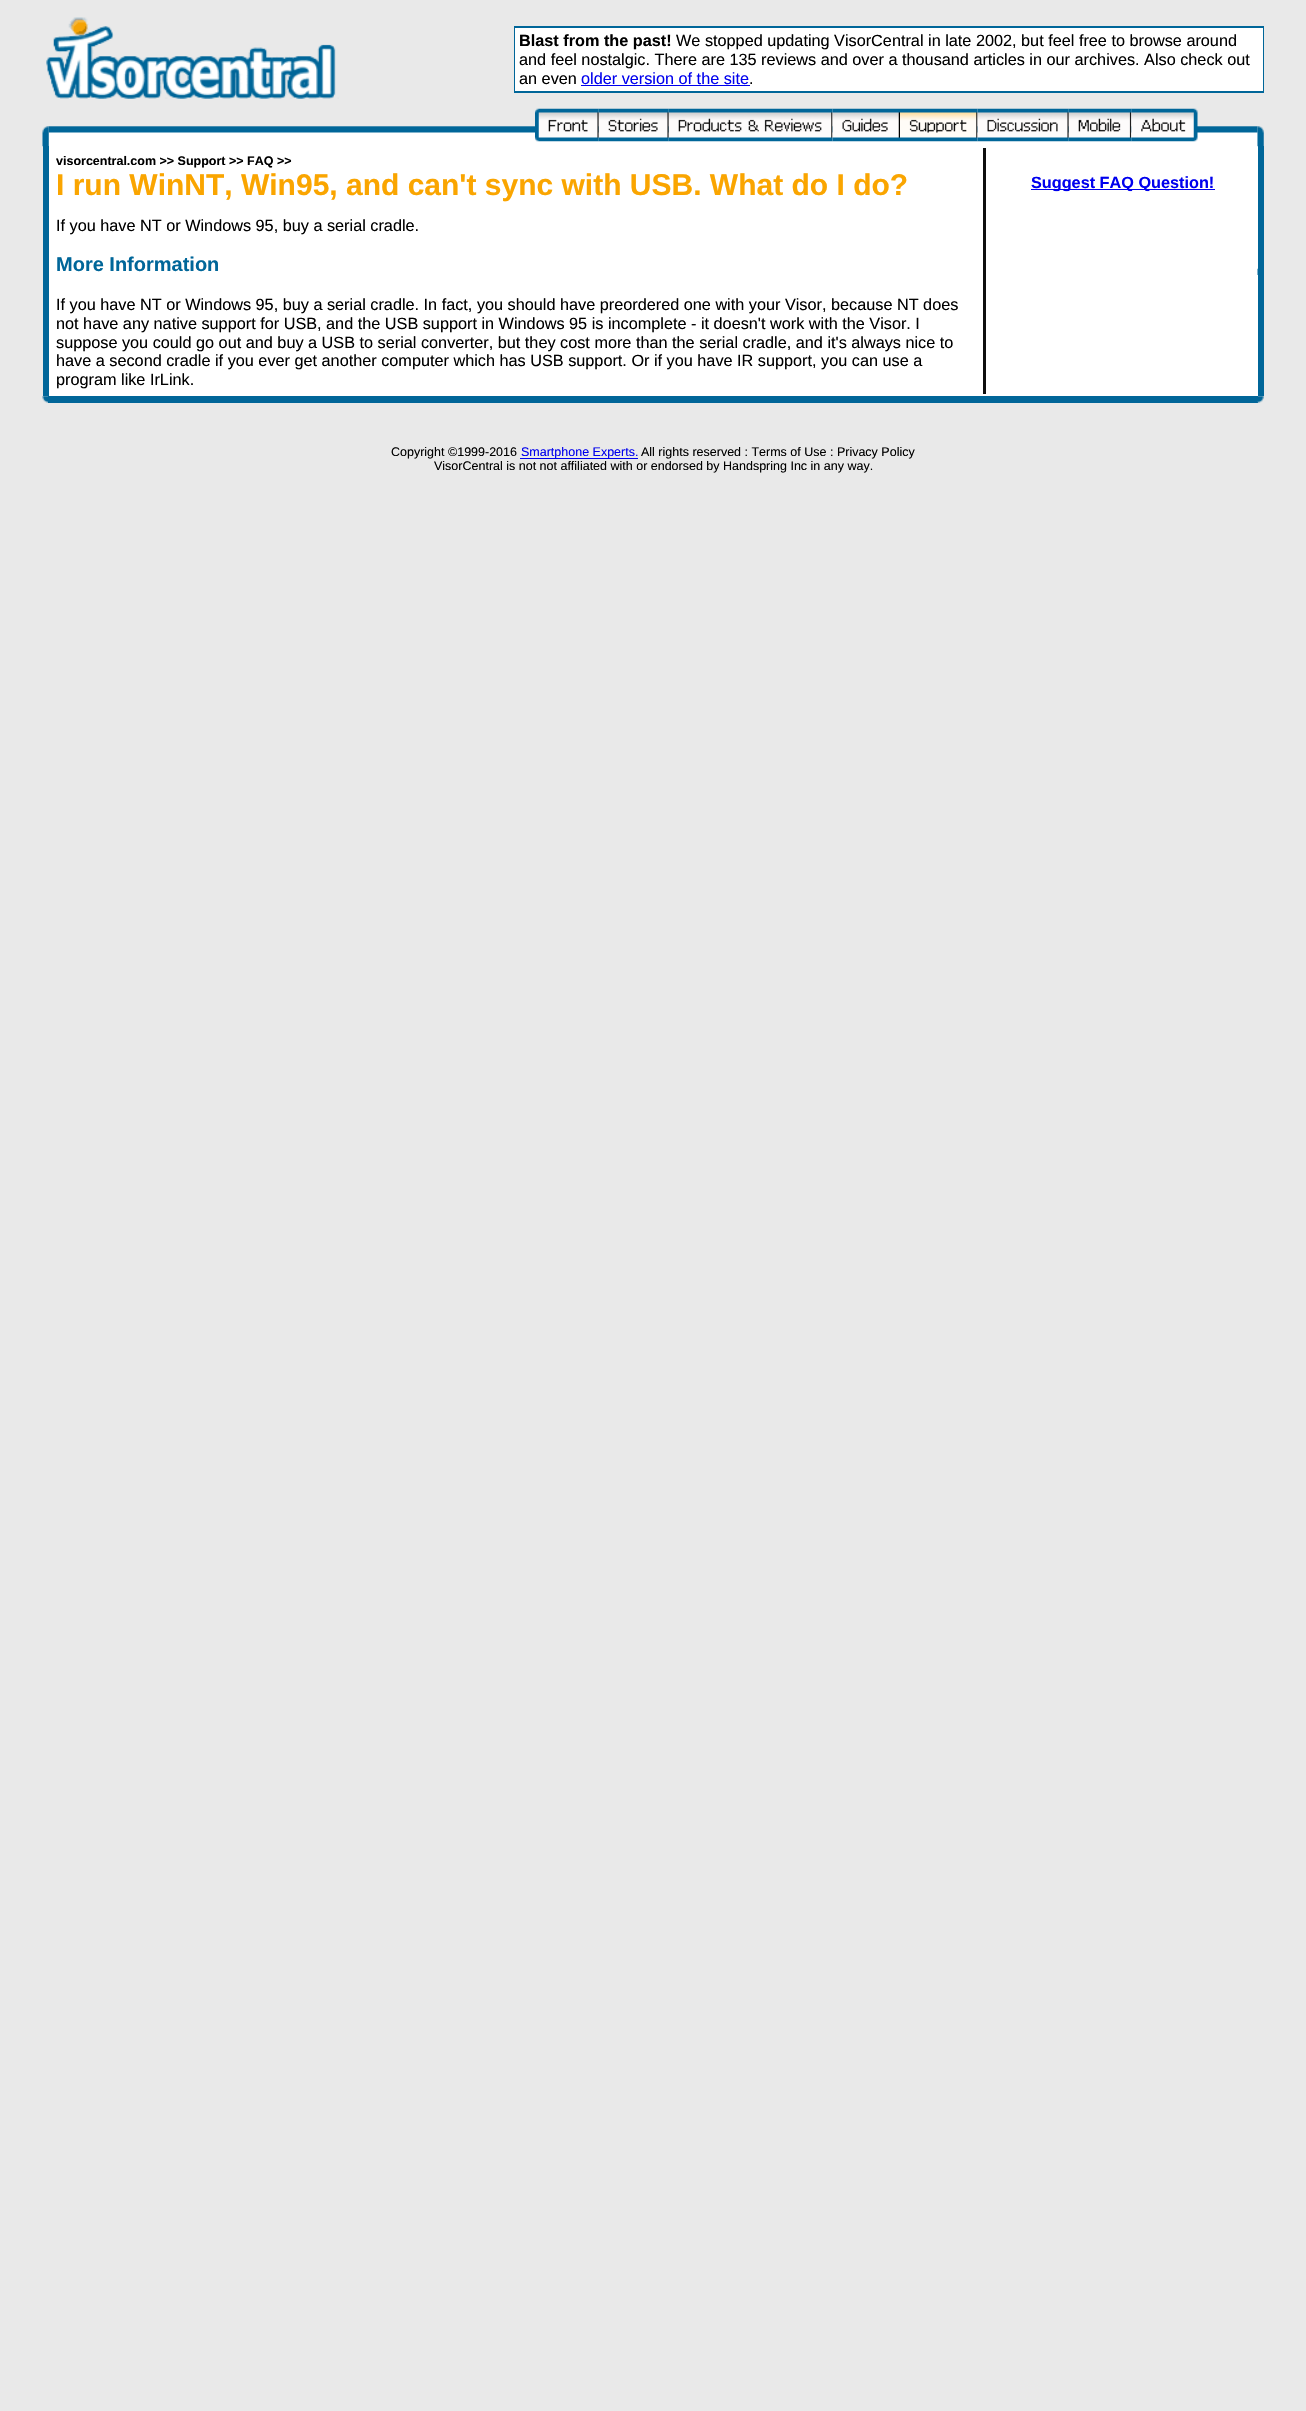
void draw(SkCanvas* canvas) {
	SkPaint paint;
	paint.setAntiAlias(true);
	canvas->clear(0xffe9e9e9);
	canvas->drawImageRect(SkImages::DeferredFromEncodedData(SkData::MakeFromFileName("img1.png")), SkRect::MakeXYWH(46, 17, 293, 82), SkSamplingOptions());
	paint.setColor(0xff006699);
	canvas->drawRect(SkRect::MakeXYWH(514, 26, 750, 67), paint);
	paint.setColor(0xffffffff);
	canvas->drawRect(SkRect::MakeXYWH(515, 28, 748, 63), paint);
	SkFont f1(fontMgr->matchFamilyStyle("Liberation Sans", SkFontStyle::Bold()), 16.25);
	f1.setSubpixel(true);
	paint.setColor(0xff000000);
	canvas->drawString("Blast from the past!", 519, 46, f1, paint);
	SkFont f2(fontMgr->matchFamilyStyle("Liberation Sans", SkFontStyle::Normal()), 16.25);
	f2.setSubpixel(true);
	canvas->drawString("We stopped updating VisorCentral in late 2002, but feel free to browse around", 676, 46, f2, paint);
	canvas->drawString("and feel nostalgic. There are 135 reviews and over a thousand articles in our archives. Also check out", 519, 65, f2, paint);
	canvas->drawString("an even", 519, 84, f2, paint);
	paint.setColor(0xff0000ee);
	canvas->drawString("older version of the site", 581, 84, f2, paint);
	paint.setColor(0xff000000);
	canvas->drawString(".", 749, 84, f2, paint);
	paint.setColor(0xff0000ee);
	canvas->drawRect(SkRect::MakeXYWH(581, 85, 169, 1), paint);
	canvas->drawImageRect(SkImages::DeferredFromEncodedData(SkData::MakeFromFileName("img3.png")), SkRect::MakeXYWH(48, 126, 1210, 20), SkSamplingOptions());
	paint.setColor(0xff006699);
	canvas->drawRect(SkRect::MakeXYWH(43, 146, 6, 250), paint);
	canvas->drawImageRect(SkImages::DeferredFromEncodedData(SkData::MakeFromFileName("img2.png")), SkRect::MakeXYWH(42, 126, 7, 21), SkSamplingOptions());
	canvas->drawImageRect(SkImages::DeferredFromEncodedData(SkData::MakeFromFileName("img4.png")), SkRect::MakeXYWH(535, 108, 64, 34), SkSamplingOptions());
	canvas->drawImageRect(SkImages::DeferredFromEncodedData(SkData::MakeFromFileName("img5.png")), SkRect::MakeXYWH(598, 108, 71, 34), SkSamplingOptions());
	canvas->drawImageRect(SkImages::DeferredFromEncodedData(SkData::MakeFromFileName("img6.png")), SkRect::MakeXYWH(668, 108, 165, 34), SkSamplingOptions());
	canvas->drawImageRect(SkImages::DeferredFromEncodedData(SkData::MakeFromFileName("img7.png")), SkRect::MakeXYWH(832, 108, 68, 34), SkSamplingOptions());
	canvas->drawImageRect(SkImages::DeferredFromEncodedData(SkData::MakeFromFileName("img8.png")), SkRect::MakeXYWH(900, 108, 78, 34), SkSamplingOptions());
	canvas->drawImageRect(SkImages::DeferredFromEncodedData(SkData::MakeFromFileName("img9.png")), SkRect::MakeXYWH(977, 108, 92, 34), SkSamplingOptions());
	canvas->drawImageRect(SkImages::DeferredFromEncodedData(SkData::MakeFromFileName("img10.png")), SkRect::MakeXYWH(1068, 108, 64, 34), SkSamplingOptions());
	canvas->drawImageRect(SkImages::DeferredFromEncodedData(SkData::MakeFromFileName("img11.png")), SkRect::MakeXYWH(1131, 108, 67, 34), SkSamplingOptions());
	paint.setColor(0xffffffff);
	canvas->drawRect(SkRect::MakeXYWH(49, 146, 1209, 250), paint);
	paint.setColor(0xff006699);
	canvas->drawRect(SkRect::MakeXYWH(1258, 146, 6, 250), paint);
	canvas->drawImageRect(SkImages::DeferredFromEncodedData(SkData::MakeFromFileName("img12.png")), SkRect::MakeXYWH(1257, 126, 7, 21), SkSamplingOptions());
	SkFont f3(fontMgr->matchFamilyStyle("Liberation Sans", SkFontStyle::Bold()), 12.5);
	f3.setSubpixel(true);
	paint.setColor(0xff000000);
	canvas->drawString("visorcentral.com >> Support >> FAQ >>", 56, 165, f3, paint);
	SkFont f4(fontMgr->matchFamilyStyle("Liberation Sans", SkFontStyle::Bold()), 30);
	f4.setSubpixel(true);
	paint.setColor(0xfffaa500);
	canvas->drawString("I run WinNT, Win95, and can't sync with USB. What do I do?", 56, 195, f4, paint);
	paint.setColor(0xff000000);
	canvas->drawString("If you have NT or Windows 95, buy a serial cradle.", 56, 231, f2, paint);
	SkFont f5(fontMgr->matchFamilyStyle("Liberation Sans", SkFontStyle::Bold()), 20);
	f5.setSubpixel(true);
	paint.setColor(0xff006699);
	canvas->drawString("More Information", 56, 271, f5, paint);
	paint.setColor(0xff000000);
	canvas->drawString("If you have NT or Windows 95, buy a serial cradle. In fact, you should have preordered one with your Visor, because NT does", 56, 310, f2, paint);
	canvas->drawString("not have any native support for USB, and the USB support in Windows 95 is incomplete - it doesn't work with the Visor. I", 56, 329, f2, paint);
	canvas->drawString("suppose you could go out and buy a USB to serial converter, but they cost more than the serial cradle, and it's always nice to", 56, 348, f2, paint);
	canvas->drawString("have a second cradle if you ever get another computer which has USB support. Or if you have IR support, you can use a", 56, 366, f2, paint);
	canvas->drawString("program like IrLink.", 56, 385, f2, paint);
	paint.setColor(0xff0f0f0f);
	canvas->drawRect(SkRect::MakeXYWH(983, 148, 3, 246), paint);
	paint.setColor(0xff0000ee);
	canvas->drawRect(SkRect::MakeXYWH(1031, 189, 184, 1), paint);
	canvas->drawString("Suggest FAQ Question!", 1031, 188, f1, paint);
	paint.setColor(0xbfffffff);
	canvas->drawRect(SkRect::MakeXYWH(1054, 191, 95, 1), paint);
	canvas->drawImageRect(SkImages::DeferredFromEncodedData(SkData::MakeFromFileName("img13.png")), SkRect::MakeXYWH(1257, 268, 1, 7), SkSamplingOptions());
	canvas->drawImageRect(SkImages::DeferredFromEncodedData(SkData::MakeFromFileName("img14.png")), SkRect::MakeXYWH(42, 396, 6, 7), SkSamplingOptions());
	paint.setColor(0xff016699);
	canvas->drawRect(SkRect::MakeXYWH(48, 396, 1210, 7), paint);
	canvas->drawImageRect(SkImages::DeferredFromEncodedData(SkData::MakeFromFileName("img15.png")), SkRect::MakeXYWH(1257, 396, 7, 7), SkSamplingOptions());
	SkFont f6(fontMgr->matchFamilyStyle("Liberation Sans", SkFontStyle::Normal()), 12.5);
	f6.setSubpixel(true);
	paint.setColor(0xff000000);
	canvas->drawString("Copyright ©1999-2016", 391, 456, f6, paint);
	paint.setColor(0xff0000ee);
	canvas->drawRect(SkRect::MakeXYWH(520, 458, 118, 1), paint);
	canvas->drawString("Smartphone Experts.", 521, 456, f6, paint);
	paint.setColor(0xff000000);
	canvas->drawString("All rights reserved : Terms of Use : Privacy Policy", 641, 456, f6, paint);
	canvas->drawString("VisorCentral is not not affiliated with or endorsed by Handspring Inc in any way.", 434, 470, f6, paint);
}
